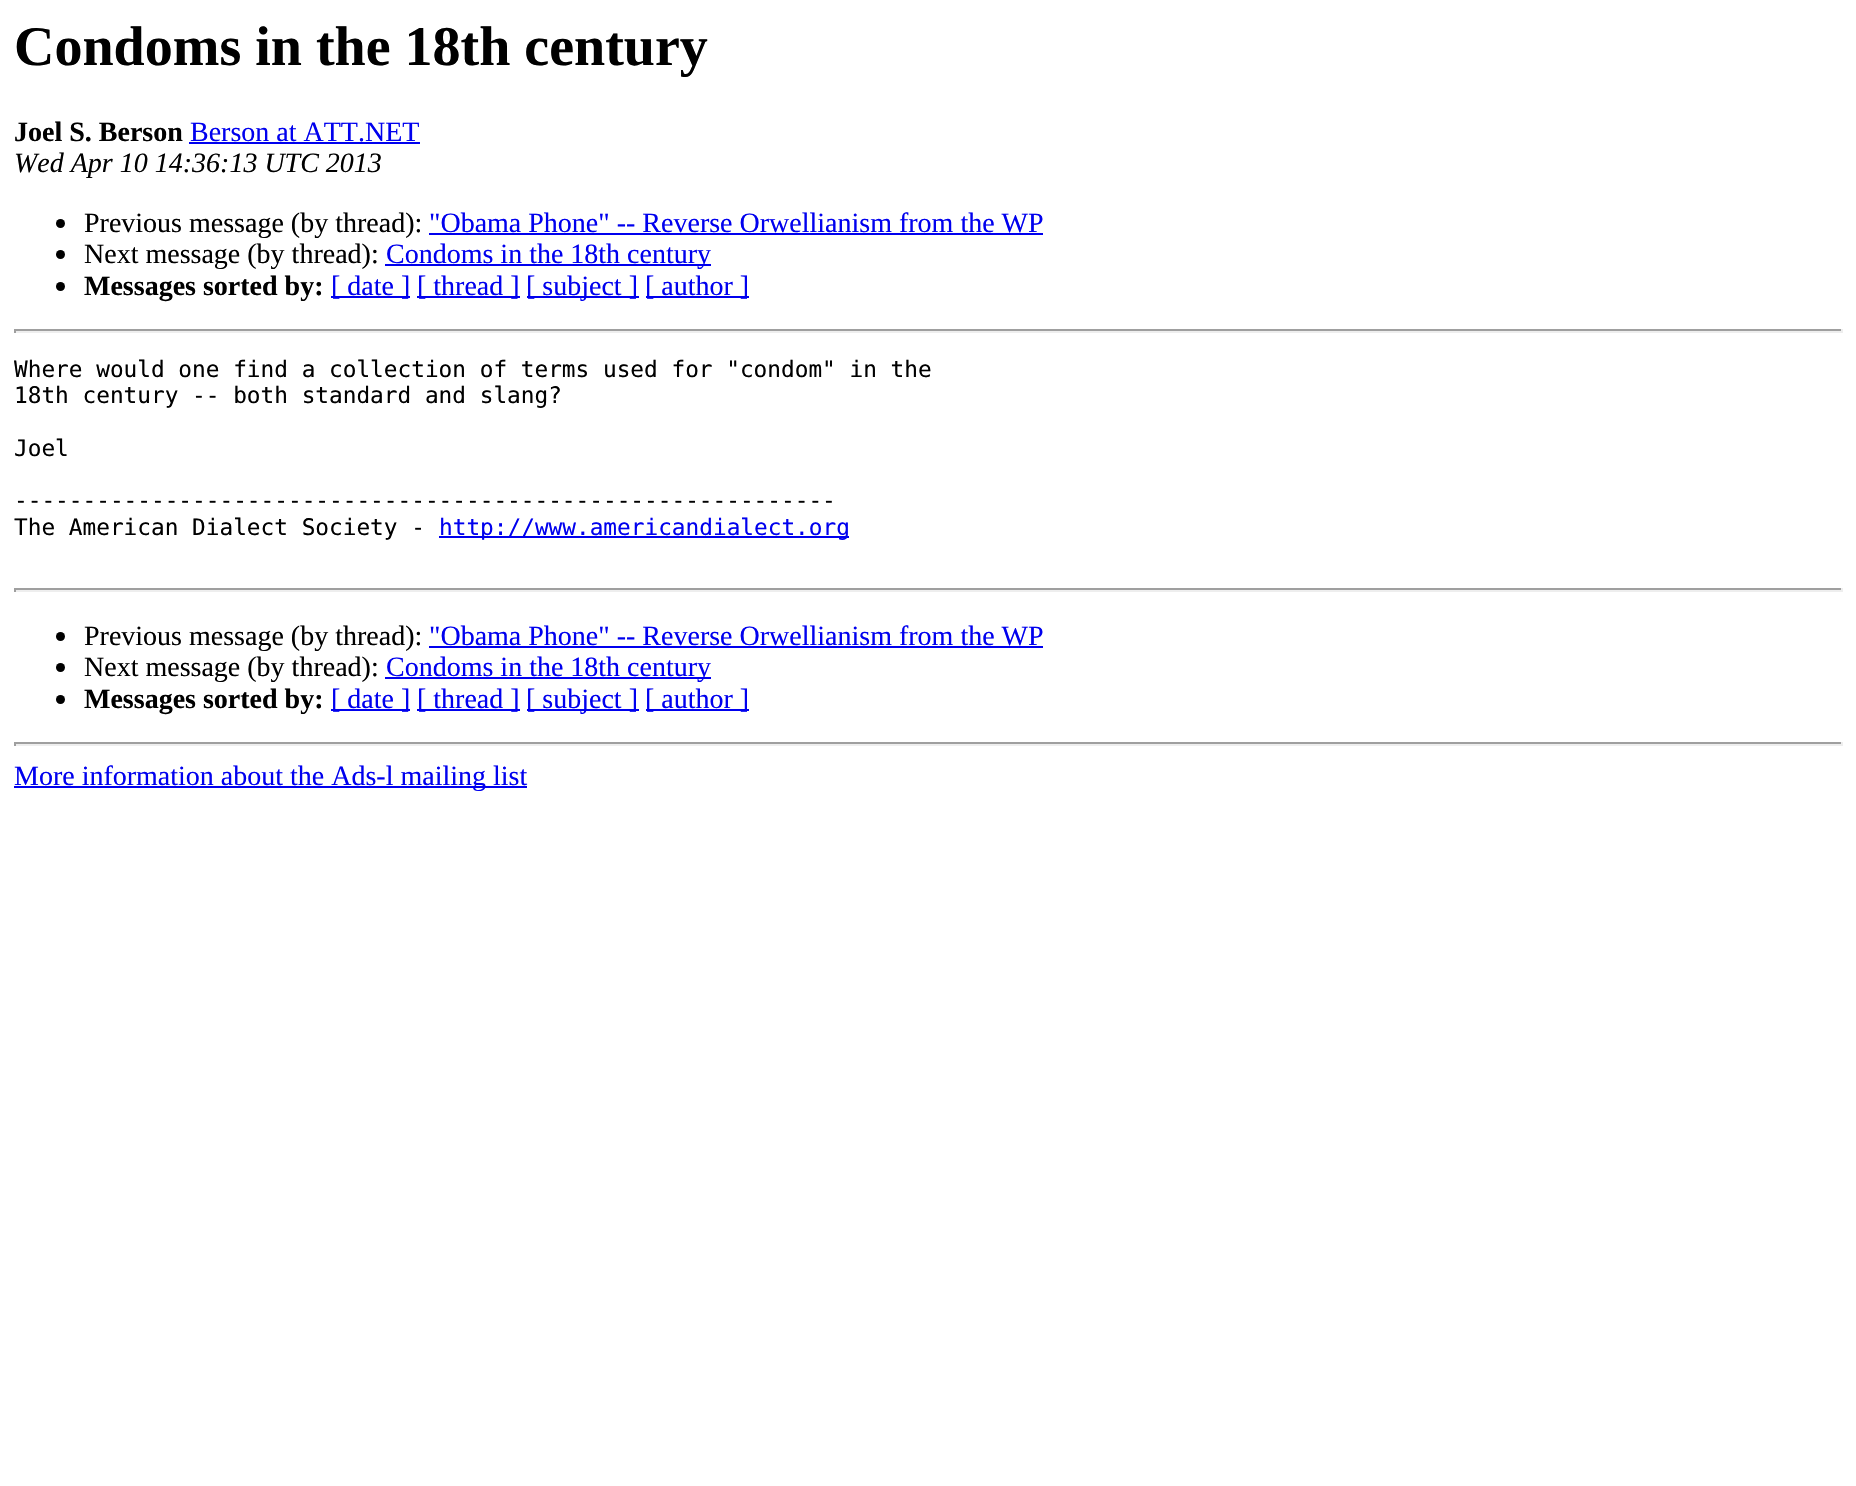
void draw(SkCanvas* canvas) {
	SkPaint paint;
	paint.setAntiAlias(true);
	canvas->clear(0xffffffff);
	SkFont f1(fontMgr->matchFamilyStyle("Liberation Serif", SkFontStyle::Bold()), 56);
	f1.setSubpixel(true);
	paint.setColor(0xff000000);
	canvas->drawString("Condoms in the 18th century", 14, 65, f1, paint);
	SkFont f2(fontMgr->matchFamilyStyle("Liberation Serif", SkFontStyle::Bold()), 28);
	f2.setSubpixel(true);
	canvas->drawString("Joel S. Berson", 14, 141, f2, paint);
	SkFont f3(fontMgr->matchFamilyStyle("Liberation Serif", SkFontStyle::Normal()), 28);
	f3.setSubpixel(true);
	paint.setColor(0xff0000ee);
	canvas->drawString("Berson at ATT.NET", 190, 141, f3, paint);
	canvas->drawRect(SkRect::MakeXYWH(189, 142, 231, 2), paint);
	SkFont f4(fontMgr->matchFamilyStyle("Liberation Serif", SkFontStyle::Italic()), 28);
	f4.setSubpixel(true);
	paint.setColor(0xff000000);
	canvas->drawString("Wed Apr 10 14:36:13 UTC 2013", 14, 172, f4, paint);
	canvas->drawCircle(60.5, 223.5, 4.5, paint);
	canvas->drawString("Previous message (by thread):", 84, 232, f3, paint);
	paint.setColor(0xff0000ee);
	canvas->drawString("\"Obama Phone\" -- Reverse Orwellianism from the WP", 429, 232, f3, paint);
	canvas->drawRect(SkRect::MakeXYWH(429, 233, 614, 2), paint);
	paint.setColor(0xff000000);
	canvas->drawCircle(60.5, 254.5, 4.5, paint);
	canvas->drawString("Next message (by thread):", 84, 263, f3, paint);
	paint.setColor(0xff0000ee);
	canvas->drawRect(SkRect::MakeXYWH(385, 264, 326, 2), paint);
	canvas->drawString("Condoms in the 18th century", 386, 263, f3, paint);
	paint.setColor(0xff000000);
	canvas->drawCircle(60.5, 286.5, 4.5, paint);
	canvas->drawString("Messages sorted by:", 84, 295, f2, paint);
	paint.setColor(0xff0000ee);
	canvas->drawRect(SkRect::MakeXYWH(331, 296, 79, 2), paint);
	canvas->drawString("[ date ]", 331, 295, f3, paint);
	canvas->drawRect(SkRect::MakeXYWH(417, 296, 103, 2), paint);
	canvas->drawString("[ thread ]", 417, 295, f3, paint);
	canvas->drawRect(SkRect::MakeXYWH(527, 296, 112, 2), paint);
	canvas->drawString("[ subject ]", 526, 295, f3, paint);
	canvas->drawRect(SkRect::MakeXYWH(646, 296, 103, 2), paint);
	canvas->drawString("[ author ]", 645, 295, f3, paint);
	paint.setColor(0xff9f9f9f);
	canvas->drawRect(SkRect::MakeXYWH(14, 329, 1829, 2), paint);
	paint.setColor(0xffeeeeee);
	canvas->drawRect(SkRect::MakeXYWH(1841, 329, 2, 4), paint);
	canvas->drawRect(SkRect::MakeXYWH(14, 331, 1829, 2), paint);
	paint.setColor(0xff9f9f9f);
	canvas->drawRect(SkRect::MakeXYWH(14, 329, 2, 4), paint);
	SkFont f5(fontMgr->matchFamilyStyle("DejaVu Sans Mono", SkFontStyle::Normal()), 22.75);
	f5.setSubpixel(true);
	paint.setColor(0xff000000);
	canvas->drawString("Where would one find a collection of terms used for \"condom\" in the", 14, 377, f5, paint);
	canvas->drawString("18th century -- both standard and slang?", 14, 403, f5, paint);
	canvas->drawString("Joel", 14, 456, f5, paint);
	canvas->drawString("------------------------------------------------------------", 14, 508, f5, paint);
	canvas->drawString("The American Dialect Society -", 14, 535, f5, paint);
	paint.setColor(0xff0000ee);
	canvas->drawRect(SkRect::MakeXYWH(439, 536, 410, 2), paint);
	canvas->drawString("http://www.americandialect.org", 439, 535, f5, paint);
	paint.setColor(0xff9f9f9f);
	canvas->drawRect(SkRect::MakeXYWH(14, 588, 1829, 2), paint);
	paint.setColor(0xffeeeeee);
	canvas->drawRect(SkRect::MakeXYWH(1841, 588, 2, 4), paint);
	canvas->drawRect(SkRect::MakeXYWH(14, 590, 1829, 2), paint);
	paint.setColor(0xff9f9f9f);
	canvas->drawRect(SkRect::MakeXYWH(14, 588, 2, 4), paint);
	paint.setColor(0xff000000);
	canvas->drawCircle(60.5, 636.5, 4.5, paint);
	canvas->drawString("Previous message (by thread):", 84, 645, f3, paint);
	paint.setColor(0xff0000ee);
	canvas->drawString("\"Obama Phone\" -- Reverse Orwellianism from the WP", 429, 645, f3, paint);
	canvas->drawRect(SkRect::MakeXYWH(429, 646, 614, 2), paint);
	paint.setColor(0xff000000);
	canvas->drawCircle(60.5, 667.5, 4.5, paint);
	canvas->drawString("Next message (by thread):", 84, 676, f3, paint);
	paint.setColor(0xff0000ee);
	canvas->drawRect(SkRect::MakeXYWH(385, 677, 326, 2), paint);
	canvas->drawString("Condoms in the 18th century", 386, 676, f3, paint);
	paint.setColor(0xff000000);
	canvas->drawCircle(60.5, 699.5, 4.5, paint);
	canvas->drawString("Messages sorted by:", 84, 708, f2, paint);
	paint.setColor(0xff0000ee);
	canvas->drawRect(SkRect::MakeXYWH(331, 709, 79, 2), paint);
	canvas->drawString("[ date ]", 331, 708, f3, paint);
	canvas->drawRect(SkRect::MakeXYWH(417, 709, 103, 2), paint);
	canvas->drawString("[ thread ]", 417, 708, f3, paint);
	canvas->drawRect(SkRect::MakeXYWH(527, 709, 112, 2), paint);
	canvas->drawString("[ subject ]", 526, 708, f3, paint);
	canvas->drawRect(SkRect::MakeXYWH(646, 709, 103, 2), paint);
	canvas->drawString("[ author ]", 645, 708, f3, paint);
	paint.setColor(0xff9f9f9f);
	canvas->drawRect(SkRect::MakeXYWH(14, 742, 1829, 2), paint);
	paint.setColor(0xffeeeeee);
	canvas->drawRect(SkRect::MakeXYWH(1841, 742, 2, 4), paint);
	canvas->drawRect(SkRect::MakeXYWH(14, 744, 1829, 2), paint);
	paint.setColor(0xff9f9f9f);
	canvas->drawRect(SkRect::MakeXYWH(14, 742, 2, 4), paint);
	paint.setColor(0xff0000ee);
	canvas->drawRect(SkRect::MakeXYWH(14, 786, 513, 2), paint);
	canvas->drawString("More information about the Ads-l mailing list", 14, 785, f3, paint);
}
